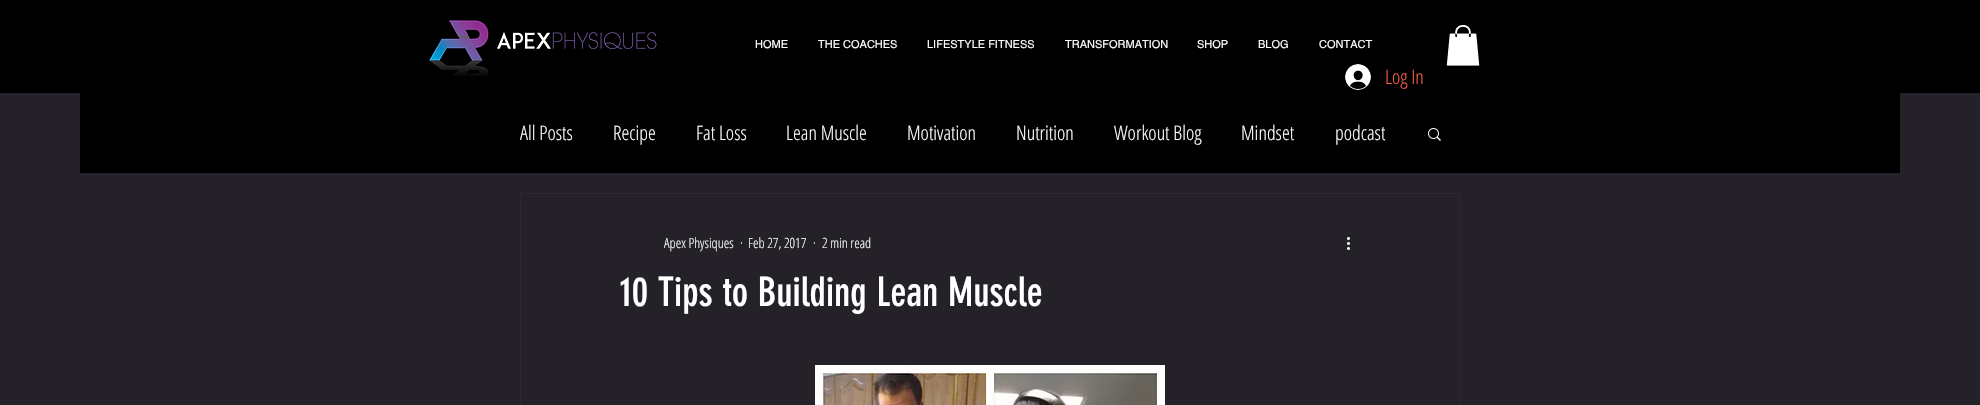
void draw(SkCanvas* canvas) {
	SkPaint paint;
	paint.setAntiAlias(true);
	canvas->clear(0xff252128);
	paint.setColor(0xff000000);
	canvas->drawRect(SkRect::MakeXYWH(0, 0, 1980, 93), paint);
	canvas->drawImageRect(SkImages::DeferredFromEncodedData(SkData::MakeFromFileName("img1.png")), SkRect::MakeXYWH(429, 20, 228, 56), SkSamplingOptions());
	SkFont f1(fontMgr->matchFamilyStyle("helvetica", SkFontStyle::Normal()), 11);
	f1.setSubpixel(true);
	paint.setColor(0xffffffff);
	canvas->drawString("HOME", 755, 48, f1, paint);
	canvas->drawString("THE COACHES", 818, 48, f1, paint);
	canvas->drawString("LIFESTYLE FITNESS", 927, 48, f1, paint);
	canvas->drawString("TRANSFORMATION", 1065, 48, f1, paint);
	canvas->drawString("SHOP", 1197, 48, f1, paint);
	canvas->drawString("BLOG", 1258, 48, f1, paint);
	canvas->drawString("CONTACT", 1319, 48, f1, paint);
	canvas->drawImageRect(SkImages::DeferredFromEncodedData(SkData::MakeFromFileName("img2.png")), SkRect::MakeXYWH(1446, 25, 34, 41), SkSamplingOptions());
	canvas->drawImageRect(SkImages::DeferredFromEncodedData(SkData::MakeFromFileName("img3.png")), SkRect::MakeXYWH(1345, 64, 26, 26), SkSamplingOptions());
	SkFont f2(fontMgr->matchFamilyStyle("Open Sans Condensed", SkFontStyle(300, SkFontStyle::kNormal_Width, SkFontStyle::kUpright_Slant)), 20);
	f2.setSubpixel(true);
	paint.setColor(0xfffe6148);
	canvas->drawString("Log In", 1385, 84, f2, paint);
	paint.setColor(0xff000000);
	canvas->drawRect(SkRect::MakeXYWH(80, 93, 1820, 80), paint);
	paint.setColor(0xffffffff);
	canvas->drawString("All Posts", 520, 140, f2, paint);
	canvas->drawString("Recipe", 613, 140, f2, paint);
	canvas->drawString("Fat Loss", 696, 140, f2, paint);
	canvas->drawString("Lean Muscle", 786, 140, f2, paint);
	canvas->drawString("Motivation", 907, 140, f2, paint);
	canvas->drawString("Nutrition", 1016, 140, f2, paint);
	canvas->drawString("Workout Blog", 1114, 140, f2, paint);
	canvas->drawString("Mindset", 1241, 140, f2, paint);
	canvas->drawString("podcast", 1335, 140, f2, paint);
	canvas->drawImageRect(SkImages::DeferredFromEncodedData(SkData::MakeFromFileName("img4.png")), SkRect::MakeXYWH(1428, 128, 13, 13), SkSamplingOptions());
	paint.setStroke(true);
	paint.setStrokeWidth(1);
	paint.setColor(0xff2d2930);
	canvas->drawRect(SkRect::MakeXYWH(520.5, 193.5, 939, 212), paint);
	SkFont f3(fontMgr->matchFamilyStyle("Open Sans Condensed", SkFontStyle(300, SkFontStyle::kNormal_Width, SkFontStyle::kUpright_Slant)), 14);
	f3.setSubpixel(true);
	paint.setStroke(false);
	paint.setColor(0xffffffff);
	canvas->drawString("Apex Physiques", 664, 248, f3, paint);
	canvas->drawString("·", 740, 248, f3, paint);
	canvas->drawString("Feb 27, 2017", 748, 248, f3, paint);
	canvas->drawString("·", 813, 248, f3, paint);
	canvas->drawString("2 min read", 822, 248, f3, paint);
	canvas->drawImageRect(SkImages::DeferredFromEncodedData(SkData::MakeFromFileName("img5.png")), SkRect::MakeXYWH(1347, 237, 3, 13), SkSamplingOptions());
	SkFont f4(fontMgr->matchFamilyStyle("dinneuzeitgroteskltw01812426", SkFontStyle::Normal()), 40);
	f4.setSubpixel(true);
	canvas->drawString("10 Tips to Building Lean Muscle", 620, 306, f4, paint);
	canvas->drawImageRect(SkImages::DeferredFromEncodedData(SkData::MakeFromFileName("img6.png")), SkRect::MakeXYWH(815, 365, 350, 40), SkSamplingOptions());
}
